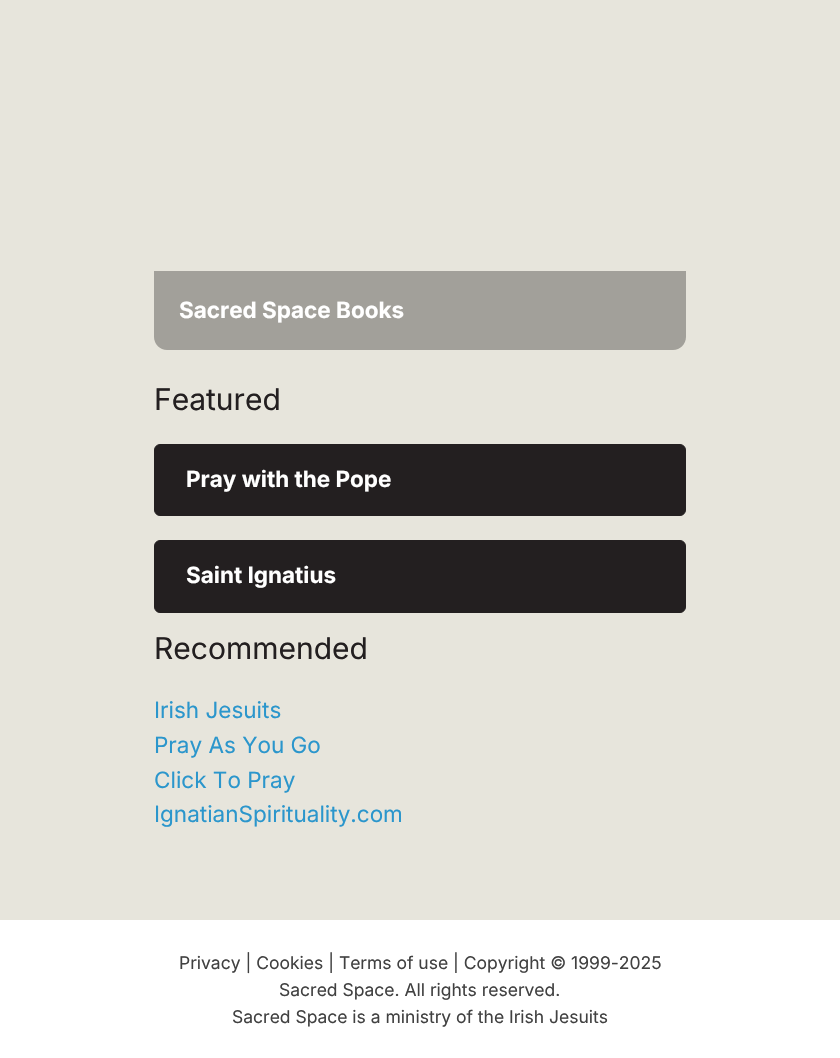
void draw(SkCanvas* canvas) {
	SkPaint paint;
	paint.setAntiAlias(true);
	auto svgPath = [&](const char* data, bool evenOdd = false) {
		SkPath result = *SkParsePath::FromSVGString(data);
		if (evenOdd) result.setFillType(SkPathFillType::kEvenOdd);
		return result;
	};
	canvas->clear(0xffffffff);
	paint.setColor(0xffe7e5dc);
	canvas->drawRect(SkRect::MakeXYWH(0, 0, 840, 920), paint);
	paint.setColor(0xffa2a09a);
	canvas->drawPath(svgPath("M154 271H686V337C686 344 680 350 673 350H167C160 350 154 344 154 337Z"), paint);
	SkFont f1(fontMgr->matchFamilyStyle("Inter", SkFontStyle::Bold()), 22.5);
	f1.setSubpixel(true);
	paint.setColor(0xffffffff);
	canvas->drawString("Sacred Space Books", 179, 318, f1, paint);
	SkFont f2(fontMgr->matchFamilyStyle("Inter", SkFontStyle::Normal()), 30);
	f2.setSubpixel(true);
	paint.setColor(0xff231f20);
	canvas->drawString("Featured", 154, 410, f2, paint);
	canvas->drawRoundRect(SkRect::MakeXYWH(154.5, 444.5, 531, 71), 5.5, 5.5, paint);
	paint.setStroke(true);
	paint.setStrokeWidth(1);
	canvas->drawRoundRect(SkRect::MakeXYWH(154.5, 444.5, 531, 71), 5.5, 5.5, paint);
	paint.setStroke(false);
	paint.setColor(0xffffffff);
	canvas->drawString("Pray with the Pope", 186, 487, f1, paint);
	paint.setColor(0xff231f20);
	canvas->drawRoundRect(SkRect::MakeXYWH(154.5, 540.5, 531, 72), 5.5, 5.5, paint);
	paint.setStroke(true);
	canvas->drawRoundRect(SkRect::MakeXYWH(154.5, 540.5, 531, 72), 5.5, 5.5, paint);
	paint.setStroke(false);
	paint.setColor(0xffffffff);
	canvas->drawString("Saint Ignatius", 186, 583, f1, paint);
	paint.setColor(0xff231f20);
	canvas->drawString("Recommended", 154, 659, f2, paint);
	SkFont f3(fontMgr->matchFamilyStyle("Inter", SkFontStyle::Normal()), 22.5);
	f3.setSubpixel(true);
	paint.setColor(0xff2b96cc);
	canvas->drawString("Irish Jesuits", 154, 718, f3, paint);
	canvas->drawString("Pray As You Go", 154, 753, f3, paint);
	canvas->drawString("Click To Pray", 154, 788, f3, paint);
	canvas->drawString("IgnatianSpirituality.com", 154, 822, f3, paint);
	SkFont f4(fontMgr->matchFamilyStyle("Inter", SkFontStyle::Normal()), 17.5);
	f4.setSubpixel(true);
	paint.setColor(0xff414141);
	canvas->drawString("Privacy | Cookies | Terms of use | Copyright © 1999-2025", 179, 969, f4, paint);
	canvas->drawString("Sacred Space. All rights reserved.", 279, 996, f4, paint);
	canvas->drawString("Sacred Space is a ministry of the Irish Jesuits", 232, 1023, f4, paint);
}
